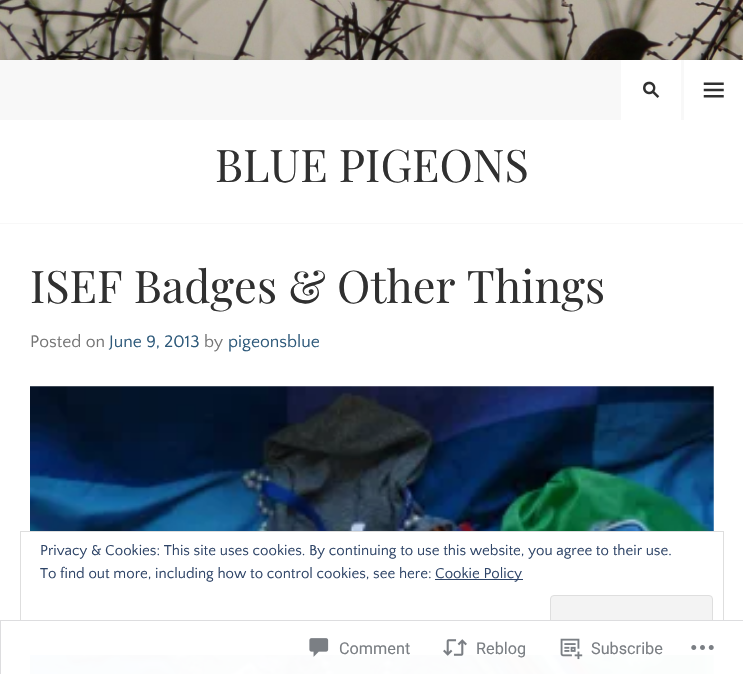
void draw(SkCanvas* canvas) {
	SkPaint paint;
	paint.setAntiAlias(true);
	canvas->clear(0xffffffff);
	paint.setColor(0xfff8f8f8);
	canvas->drawRect(SkRect::MakeXYWH(0, 223, 743, 1), paint);
	canvas->drawImageRect(SkImages::DeferredFromEncodedData(SkData::MakeFromFileName("img1.png")), SkRect::MakeXYWH(0, 0, 743, 60), SkSamplingOptions());
	canvas->drawRect(SkRect::MakeXYWH(0, 60, 684, 60), paint);
	paint.setColor(0xffffffff);
	canvas->drawRect(SkRect::MakeXYWH(621, 60, 60, 60), paint);
	canvas->drawImageRect(SkImages::DeferredFromEncodedData(SkData::MakeFromFileName("img2.png")), SkRect::MakeXYWH(643, 81, 17, 17), SkSamplingOptions());
	canvas->drawImageRect(SkImages::DeferredFromEncodedData(SkData::MakeFromFileName("img3.png")), SkRect::MakeXYWH(703, 82, 21, 16), SkSamplingOptions());
	SkFont f1(fontMgr->matchFamilyStyle("Playfair Display", SkFontStyle::Normal()), 45);
	f1.setSubpixel(true);
	paint.setColor(0xff303030);
	canvas->drawString("BLUE PIGEONS", 215, 182, f1, paint);
	canvas->drawString("ISEF Badges & Other Things", 30, 303, f1, paint);
	SkFont f2(fontMgr->matchFamilyStyle("Quattrocento Sans", SkFontStyle::Normal()), 17.5);
	f2.setSubpixel(true);
	paint.setColor(0xff757575);
	canvas->drawString("Posted on", 30, 347, f2, paint);
	paint.setColor(0xff2d597a);
	canvas->drawString("June 9, 2013", 109, 347, f2, paint);
	paint.setColor(0xff757575);
	canvas->drawString("by", 204, 347, f2, paint);
	paint.setColor(0xff2d597a);
	canvas->drawString("pigeonsblue", 228, 347, f2, paint);
	canvas->drawImageRect(SkImages::DeferredFromEncodedData(SkData::MakeFromFileName("img4.png")), SkRect::MakeXYWH(30, 386, 684, 288), SkSamplingOptions());
	paint.setColor(0xffffffff);
	canvas->drawRect(SkRect::MakeXYWH(30, 532, 684, 122), paint);
	paint.setStroke(true);
	paint.setStrokeWidth(1);
	paint.setColor(0xffdedede);
	canvas->drawRect(SkRect::MakeXYWH(20.5, 531.5, 703, 123), paint);
	SkFont f3(fontMgr->matchFamilyStyle("Quattrocento Sans", SkFontStyle::Normal()), 15);
	f3.setSubpixel(true);
	paint.setStroke(false);
	paint.setColor(0xff2e4467);
	canvas->drawString("Privacy & Cookies: This site uses cookies. By continuing to use this website, you agree to their use.", 40, 555, f3, paint);
	canvas->drawString("To find out more, including how to control cookies, see here:", 40, 578, f3, paint);
	canvas->drawRect(SkRect::MakeXYWH(435, 579, 88, 1), paint);
	canvas->drawString("Cookie Policy", 435, 578, f3, paint);
	paint.setColor(0xfff3f3f3);
	canvas->drawRoundRect(SkRect::MakeXYWH(550.5, 595.5, 162, 48), 3.5, 3.5, paint);
	paint.setStroke(true);
	paint.setColor(0xffdedede);
	canvas->drawRoundRect(SkRect::MakeXYWH(550.5, 595.5, 162, 48), 3.5, 3.5, paint);
	paint.setStroke(false);
	paint.setColor(0xfaffffff);
	canvas->drawRect(SkRect::MakeXYWH(20, 620, 704, 54), paint);
	paint.setStroke(true);
	paint.setColor(0xfadcdcde);
	canvas->drawRect(SkRect::MakeXYWH(0.5, 620.5, 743, 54), paint);
	canvas->drawImageRect(SkImages::DeferredFromEncodedData(SkData::MakeFromFileName("img5.png")), SkRect::MakeXYWH(309, 638, 20, 19), SkSamplingOptions());
	SkFont f4(fontMgr->matchFamilyStyle("Roboto", SkFontStyle::Normal()), 16.25);
	f4.setSubpixel(true);
	paint.setStroke(false);
	paint.setColor(0xff7b7f84);
	canvas->drawString("Comment", 339, 654, f4, paint);
	canvas->drawImageRect(SkImages::DeferredFromEncodedData(SkData::MakeFromFileName("img6.png")), SkRect::MakeXYWH(443, 639, 24, 17), SkSamplingOptions());
	canvas->drawString("Reblog", 476, 654, f4, paint);
	canvas->drawImageRect(SkImages::DeferredFromEncodedData(SkData::MakeFromFileName("img7.png")), SkRect::MakeXYWH(560, 638, 23, 22), SkSamplingOptions());
	canvas->drawString("Subscribe", 591, 654, f4, paint);
	canvas->drawImageRect(SkImages::DeferredFromEncodedData(SkData::MakeFromFileName("img8.png")), SkRect::MakeXYWH(691, 645, 23, 5), SkSamplingOptions());
}
